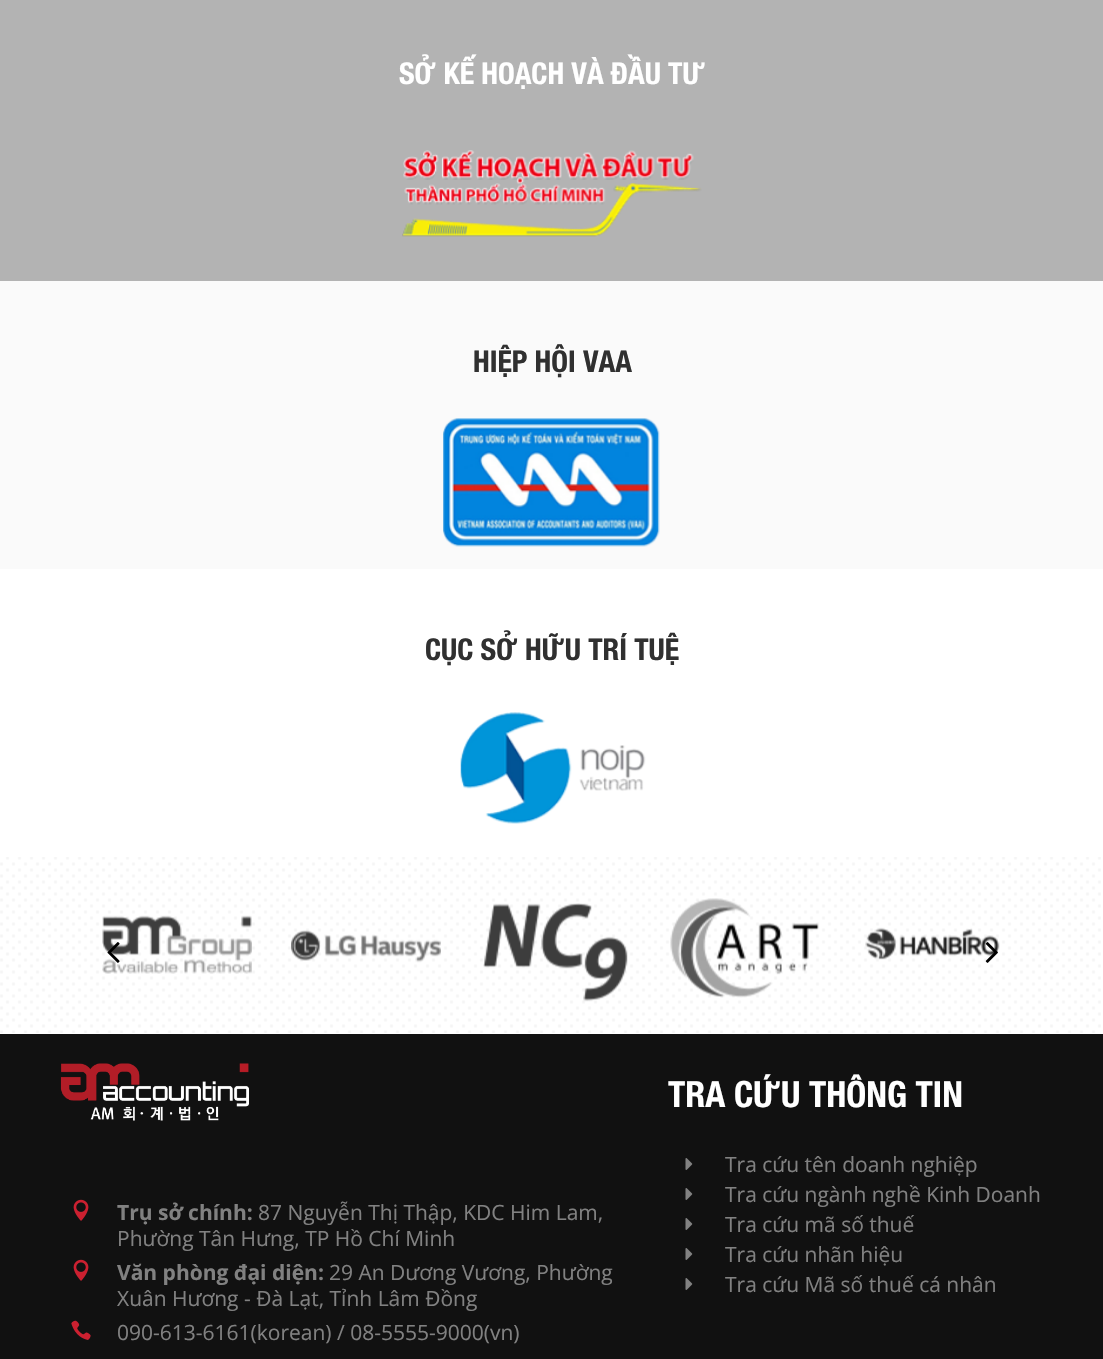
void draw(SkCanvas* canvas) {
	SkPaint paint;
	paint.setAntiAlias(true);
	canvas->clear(0xffffffff);
	paint.setColor(0xffb3b3b3);
	canvas->drawRect(SkRect::MakeXYWH(0, 0, 1103, 281), paint);
	SkFont f1(fontMgr->matchFamilyStyle("Helvetica Neue", SkFontStyle::Bold()), 30);
	f1.setSubpixel(true);
	paint.setColor(0xffffffff);
	canvas->drawString("SỞ KẾ HOẠCH VÀ ĐẦU TƯ", 399, 84, f1, paint);
	canvas->drawImageRect(SkImages::DeferredFromEncodedData(SkData::MakeFromFileName("img1.png")), SkRect::MakeXYWH(402, 150, 300, 87), SkSamplingOptions());
	paint.setColor(0xfffafafa);
	canvas->drawRect(SkRect::MakeXYWH(0, 281, 1103, 288), paint);
	paint.setColor(0xff303030);
	canvas->drawString("HIỆP HỘI VAA", 473, 372, f1, paint);
	canvas->drawImageRect(SkImages::DeferredFromEncodedData(SkData::MakeFromFileName("img2.png")), SkRect::MakeXYWH(443, 418, 217, 129), SkSamplingOptions());
	canvas->drawString("CỤC SỞ HỮU TRÍ TUỆ", 425, 660, f1, paint);
	canvas->drawImageRect(SkImages::DeferredFromEncodedData(SkData::MakeFromFileName("img3.png")), SkRect::MakeXYWH(460, 712, 186, 112), SkSamplingOptions());
	canvas->drawImageRect(SkImages::DeferredFromEncodedData(SkData::MakeFromFileName("img4.png")), SkRect::MakeXYWH(0, 857, 1101, 176), SkSamplingOptions());
	canvas->drawImageRect(SkImages::DeferredFromEncodedData(SkData::MakeFromFileName("img5.png")), SkRect::MakeXYWH(102, 915, 150, 59), SkSamplingOptions());
	canvas->drawImageRect(SkImages::DeferredFromEncodedData(SkData::MakeFromFileName("img6.png")), SkRect::MakeXYWH(291, 930, 150, 33), SkSamplingOptions());
	canvas->drawImageRect(SkImages::DeferredFromEncodedData(SkData::MakeFromFileName("img7.png")), SkRect::MakeXYWH(483, 903, 145, 99), SkSamplingOptions());
	canvas->drawImageRect(SkImages::DeferredFromEncodedData(SkData::MakeFromFileName("img8.png")), SkRect::MakeXYWH(670, 898, 149, 100), SkSamplingOptions());
	canvas->drawImageRect(SkImages::DeferredFromEncodedData(SkData::MakeFromFileName("img9.png")), SkRect::MakeXYWH(865, 927, 135, 33), SkSamplingOptions());
	canvas->drawImageRect(SkImages::DeferredFromEncodedData(SkData::MakeFromFileName("img10.png")), SkRect::MakeXYWH(107, 942, 13, 21), SkSamplingOptions());
	canvas->drawImageRect(SkImages::DeferredFromEncodedData(SkData::MakeFromFileName("img11.png")), SkRect::MakeXYWH(985, 942, 13, 21), SkSamplingOptions());
	paint.setColor(0xff111111);
	canvas->drawRect(SkRect::MakeXYWH(0, 1034, 1103, 325), paint);
	canvas->drawImageRect(SkImages::DeferredFromEncodedData(SkData::MakeFromFileName("img12.png")), SkRect::MakeXYWH(60, 1063, 189, 58), SkSamplingOptions());
	canvas->drawImageRect(SkImages::DeferredFromEncodedData(SkData::MakeFromFileName("img13.png")), SkRect::MakeXYWH(73, 1199, 16, 22), SkSamplingOptions());
	SkFont f2(fontMgr->matchFamilyStyle("Open Sans", SkFontStyle::Bold()), 21);
	f2.setSubpixel(true);
	paint.setColor(0xff818181);
	canvas->drawString("Trụ sở chính:", 117, 1220, f2, paint);
	SkFont f3(fontMgr->matchFamilyStyle("Open Sans", SkFontStyle::Normal()), 21);
	f3.setSubpixel(true);
	canvas->drawString("87 Nguyễn Thị Thập, KDC Him Lam,", 258, 1220, f3, paint);
	canvas->drawString("Phường Tân Hưng, TP Hồ Chí Minh", 117, 1246, f3, paint);
	canvas->drawImageRect(SkImages::DeferredFromEncodedData(SkData::MakeFromFileName("img13.png")), SkRect::MakeXYWH(73, 1259, 16, 22), SkSamplingOptions());
	canvas->drawString("Văn phòng đại diện:", 117, 1280, f2, paint);
	canvas->drawString("29 An Dương Vương, Phường", 329, 1280, f3, paint);
	canvas->drawString("Xuân Hương - Đà Lạt, Tỉnh Lâm Đồng", 117, 1306, f3, paint);
	canvas->drawImageRect(SkImages::DeferredFromEncodedData(SkData::MakeFromFileName("img14.png")), SkRect::MakeXYWH(71, 1320, 20, 20), SkSamplingOptions());
	canvas->drawString("090-613-6161(korean) / 08-5555-9000(vn)", 117, 1340, f3, paint);
	SkFont f4(fontMgr->matchFamilyStyle("Helvetica Neue", SkFontStyle::Bold()), 36);
	f4.setSubpixel(true);
	paint.setColor(0xffffffff);
	canvas->drawString("TRA CỨU THÔNG TIN", 668, 1107, f4, paint);
	canvas->drawImageRect(SkImages::DeferredFromEncodedData(SkData::MakeFromFileName("img15.png")), SkRect::MakeXYWH(685, 1158, 8, 12), SkSamplingOptions());
	paint.setColor(0xff818181);
	canvas->drawString("Tra cứu tên doanh nghiệp", 725, 1172, f3, paint);
	canvas->drawImageRect(SkImages::DeferredFromEncodedData(SkData::MakeFromFileName("img15.png")), SkRect::MakeXYWH(685, 1188, 8, 12), SkSamplingOptions());
	canvas->drawString("Tra cứu ngành nghề Kinh Doanh", 725, 1202, f3, paint);
	canvas->drawImageRect(SkImages::DeferredFromEncodedData(SkData::MakeFromFileName("img15.png")), SkRect::MakeXYWH(685, 1218, 8, 12), SkSamplingOptions());
	canvas->drawString("Tra cứu mã số thuế", 725, 1232, f3, paint);
	canvas->drawImageRect(SkImages::DeferredFromEncodedData(SkData::MakeFromFileName("img15.png")), SkRect::MakeXYWH(685, 1248, 8, 12), SkSamplingOptions());
	canvas->drawString("Tra cứu nhãn hiệu", 725, 1262, f3, paint);
	canvas->drawImageRect(SkImages::DeferredFromEncodedData(SkData::MakeFromFileName("img15.png")), SkRect::MakeXYWH(685, 1278, 8, 12), SkSamplingOptions());
	canvas->drawString("Tra cứu Mã số thuế cá nhân", 725, 1292, f3, paint);
}
